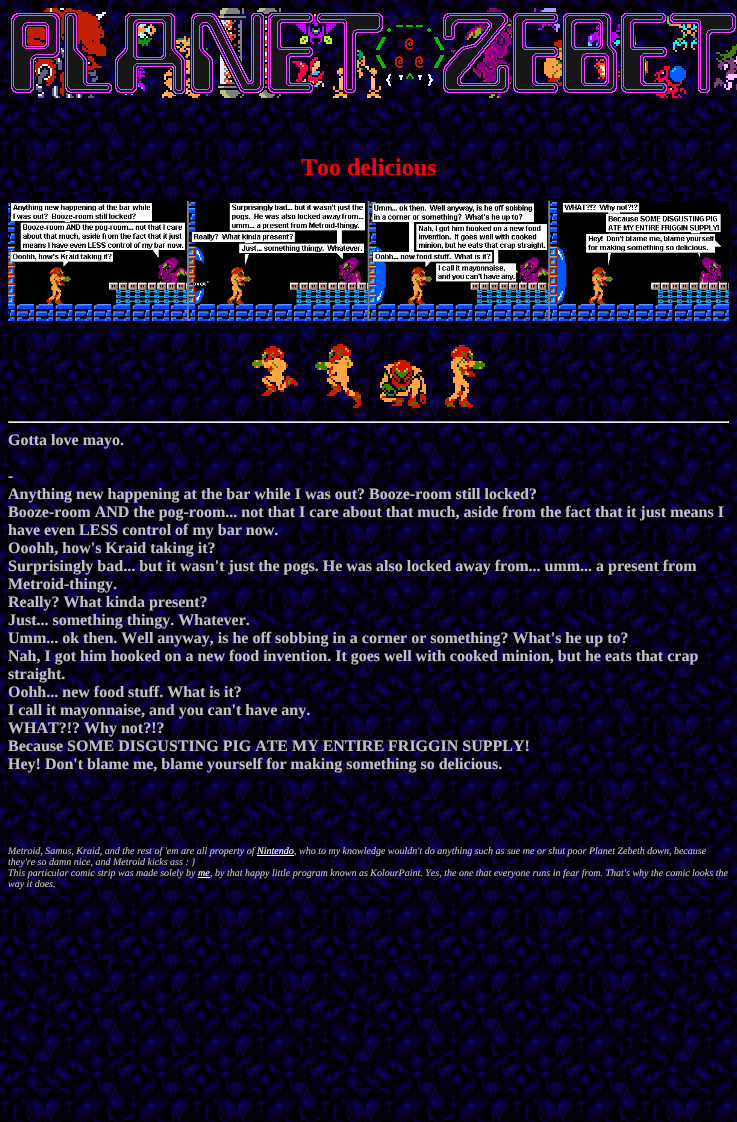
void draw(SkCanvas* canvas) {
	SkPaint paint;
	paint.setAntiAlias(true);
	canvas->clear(0xffffffff);
	canvas->drawImageRect(SkImages::DeferredFromEncodedData(SkData::MakeFromFileName("img1.png")), SkRect::MakeXYWH(0, 0, 737, 1122), SkSamplingOptions());
	canvas->drawImageRect(SkImages::DeferredFromEncodedData(SkData::MakeFromFileName("img2.png")), SkRect::MakeXYWH(11, 8, 726, 90), SkSamplingOptions());
	SkFont f1(fontMgr->matchFamilyStyle("Liberation Serif", SkFontStyle::Bold()), 24);
	f1.setSubpixel(true);
	paint.setColor(0xffff0000);
	canvas->drawString("Too delicious", 301, 175, f1, paint);
	canvas->drawImageRect(SkImages::DeferredFromEncodedData(SkData::MakeFromFileName("img3.png")), SkRect::MakeXYWH(8, 201, 721, 120), SkSamplingOptions());
	canvas->drawImageRect(SkImages::DeferredFromEncodedData(SkData::MakeFromFileName("img4.png")), SkRect::MakeXYWH(252, 346, 46, 50), SkSamplingOptions());
	canvas->drawImageRect(SkImages::DeferredFromEncodedData(SkData::MakeFromFileName("img5.png")), SkRect::MakeXYWH(315, 344, 46, 64), SkSamplingOptions());
	canvas->drawImageRect(SkImages::DeferredFromEncodedData(SkData::MakeFromFileName("img6.png")), SkRect::MakeXYWH(380, 360, 46, 48), SkSamplingOptions());
	canvas->drawImageRect(SkImages::DeferredFromEncodedData(SkData::MakeFromFileName("img7.png")), SkRect::MakeXYWH(445, 345, 40, 62), SkSamplingOptions());
	paint.setColor(0xff9f9f9f);
	canvas->drawRect(SkRect::MakeXYWH(8, 421, 721, 1), paint);
	paint.setColor(0xffeeeeee);
	canvas->drawRect(SkRect::MakeXYWH(728, 421, 1, 2), paint);
	canvas->drawRect(SkRect::MakeXYWH(8, 422, 721, 1), paint);
	paint.setColor(0xff9f9f9f);
	canvas->drawRect(SkRect::MakeXYWH(8, 421, 1, 2), paint);
	SkFont f2(fontMgr->matchFamilyStyle("Liberation Serif", SkFontStyle::Bold()), 16);
	f2.setSubpixel(true);
	paint.setColor(0xffc0c0c0);
	canvas->drawString("Gotta love mayo.", 8, 445, f2, paint);
	canvas->drawString("-", 8, 481, f2, paint);
	canvas->drawString("Anything new happening at the bar while I was out? Booze-room still locked?", 8, 499, f2, paint);
	canvas->drawString("Booze-room AND the pog-room... not that I care about that much, aside from the fact that it just means I", 8, 517, f2, paint);
	canvas->drawString("have even LESS control of my bar now.", 8, 535, f2, paint);
	canvas->drawString("Ooohh, how's Kraid taking it?", 8, 553, f2, paint);
	canvas->drawString("Surprisingly bad... but it wasn't just the pogs. He was also locked away from... umm... a present from", 8, 571, f2, paint);
	canvas->drawString("Metroid-thingy.", 8, 589, f2, paint);
	canvas->drawString("Really? What kinda present?", 8, 607, f2, paint);
	canvas->drawString("Just... something thingy. Whatever.", 8, 625, f2, paint);
	canvas->drawString("Umm... ok then. Well anyway, is he off sobbing in a corner or something? What's he up to?", 8, 643, f2, paint);
	canvas->drawString("Nah, I got him hooked on a new food invention. It goes well with cooked minion, but he eats that crap", 8, 661, f2, paint);
	canvas->drawString("straight.", 8, 679, f2, paint);
	canvas->drawString("Oohh... new food stuff. What is it?", 8, 697, f2, paint);
	canvas->drawString("I call it mayonnaise, and you can't have any.", 8, 715, f2, paint);
	canvas->drawString("WHAT?!? Why not?!?", 8, 733, f2, paint);
	canvas->drawString("Because SOME DISGUSTING PIG ATE MY ENTIRE FRIGGIN SUPPLY!", 8, 751, f2, paint);
	canvas->drawString("Hey! Don't blame me, blame yourself for making something so delicious.", 8, 769, f2, paint);
	SkFont f3(fontMgr->matchFamilyStyle("Liberation Serif", SkFontStyle::Italic()), 10);
	f3.setSubpixel(true);
	canvas->drawString("Metroid, Samus, Kraid, and the rest of 'em are all property of", 8, 854, f3, paint);
	paint.setColor(0xffffffff);
	canvas->drawString("Nintendo", 257, 854, f3, paint);
	paint.setColor(0xffc0c0c0);
	canvas->drawString(", who to my knowledge wouldn't do anything such as sue me or shut poor Planet Zebeth down, because", 294, 854, f3, paint);
	paint.setColor(0xffffffff);
	canvas->drawRect(SkRect::MakeXYWH(257, 855, 37, 1), paint);
	paint.setColor(0xffc0c0c0);
	canvas->drawString("they're so damn nice, and Metroid kicks ass : }", 8, 865, f3, paint);
	canvas->drawString("This particular comic strip was made solely by", 8, 876, f3, paint);
	paint.setColor(0xffffffff);
	canvas->drawString("me", 198, 876, f3, paint);
	canvas->drawRect(SkRect::MakeXYWH(198, 877, 12, 1), paint);
	paint.setColor(0xffc0c0c0);
	canvas->drawString(", by that happy little program known as KolourPaint. Yes, the one that everyone runs in fear from. That's why the comic looks the", 210, 876, f3, paint);
	canvas->drawString("way it does.", 8, 887, f3, paint);
}
